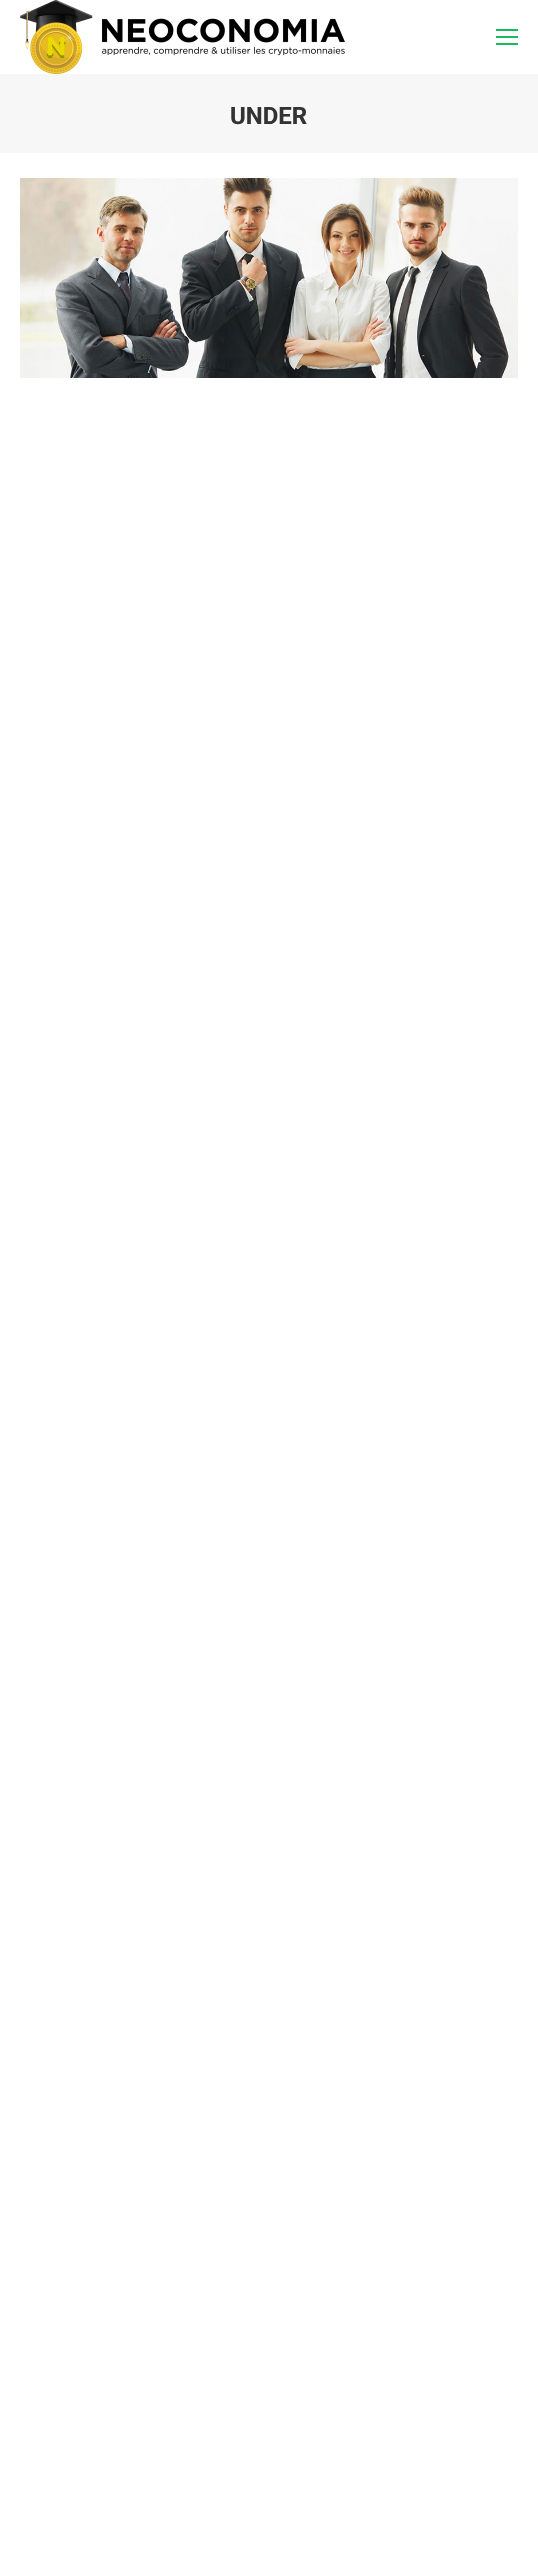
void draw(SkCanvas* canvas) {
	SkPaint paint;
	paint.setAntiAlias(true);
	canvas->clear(0xffffffff);
	canvas->drawImageRect(SkImages::DeferredFromEncodedData(SkData::MakeFromFileName("img1.png")), SkRect::MakeXYWH(20, 0, 325, 74), SkSamplingOptions());
	paint.setColor(0xff18ba60);
	canvas->drawRect(SkRect::MakeXYWH(496, 36, 22, 2), paint);
	canvas->drawRect(SkRect::MakeXYWH(496, 29, 22, 2), paint);
	canvas->drawRect(SkRect::MakeXYWH(496, 43, 22, 2), paint);
	paint.setColor(0xfff7f7f7);
	canvas->drawRect(SkRect::MakeXYWH(0, 74, 538, 79), paint);
	SkFont f1(fontMgr->matchFamilyStyle("Roboto", SkFontStyle::Bold()), 24);
	f1.setSubpixel(true);
	paint.setColor(0xff333333);
	canvas->drawString("UNDER", 230, 124, f1, paint);
	canvas->drawImageRect(SkImages::DeferredFromEncodedData(SkData::MakeFromFileName("img2.png")), SkRect::MakeXYWH(20, 178, 498, 200), SkSamplingOptions());
}
